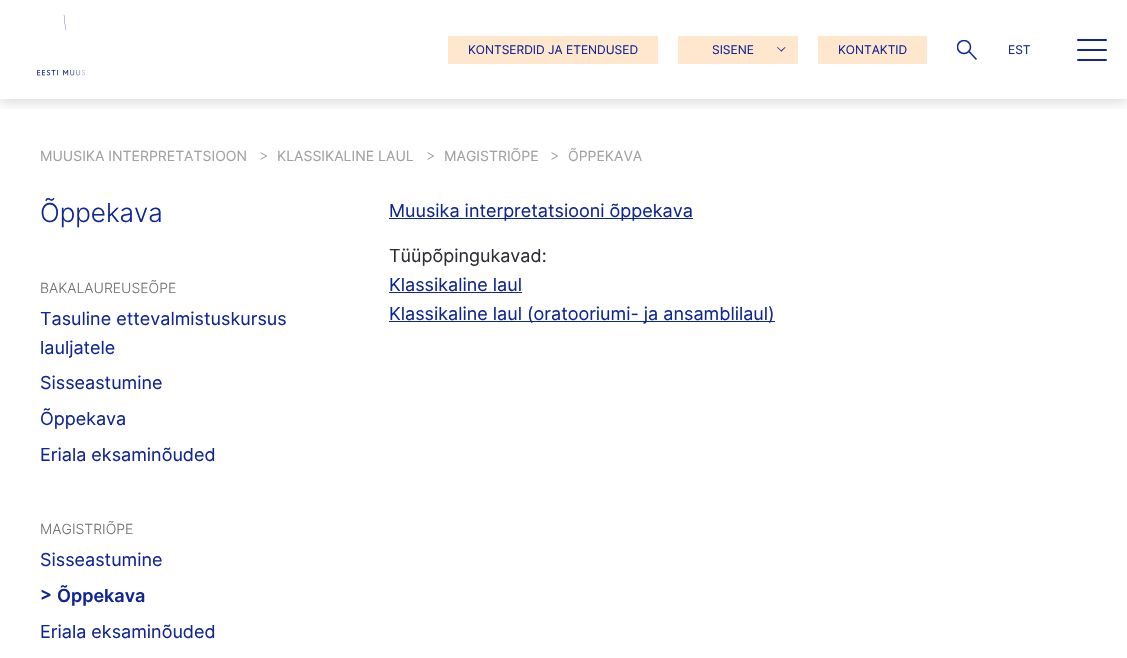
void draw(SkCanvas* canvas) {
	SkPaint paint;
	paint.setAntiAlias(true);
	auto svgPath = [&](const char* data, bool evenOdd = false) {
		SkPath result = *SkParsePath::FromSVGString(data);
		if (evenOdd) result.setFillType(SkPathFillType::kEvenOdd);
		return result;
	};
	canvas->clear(0xffffffff);
	canvas->save();
	canvas->clipRect(SkRect::MakeXYWH(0, 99, 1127, 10));
	paint.setColor(0x26000000);
	paint.setMaskFilter(SkMaskFilter::MakeBlur(kNormal_SkBlurStyle, 6));
	canvas->drawRect(SkRect::MakeXYWH(0, 3, 1127, 99), paint);
	paint.setMaskFilter(nullptr);
	canvas->restore();
	canvas->drawImageRect(SkImages::DeferredFromEncodedData(SkData::MakeFromFileName("img1.png")), SkRect::MakeXYWH(37, 15, 51, 61), SkSamplingOptions());
	paint.setColor(0xffffe7ce);
	canvas->drawRect(SkRect::MakeXYWH(448, 36, 210, 28), paint);
	SkFont f1(fontMgr->matchFamilyStyle("Inter", SkFontStyle::Normal()), 12);
	f1.setSubpixel(true);
	paint.setColor(0xff102694);
	canvas->drawString("KONTSERDID JA ETENDUSED", 468, 54, f1, paint);
	paint.setColor(0xffffe7ce);
	canvas->drawRect(SkRect::MakeXYWH(678, 36, 120, 28), paint);
	paint.setColor(0xff102694);
	canvas->drawString("SISENE", 712, 54, f1, paint);
	canvas->drawPath(svgPath("M785 47L785.5 47.5L781.5 51.5L780.5 51Z"), paint);
	canvas->drawPath(svgPath("M777.5 47L782 51L781.5 51.5L777 47.5Z"), paint);
	paint.setColor(0xffffe7ce);
	canvas->drawRect(SkRect::MakeXYWH(818, 36, 109, 28), paint);
	paint.setColor(0xff102694);
	canvas->drawString("KONTAKTID", 838, 54, f1, paint);
	canvas->save();
	canvas->clipRect(SkRect::MakeXYWH(957, 40, 21, 20));
	paint.setStroke(true);
	paint.setStrokeWidth(1.5);
	canvas->drawCircle(964, 47, 6.5, paint);
	canvas->restore();
	canvas->drawPath(svgPath("M969 51.5L976.5 59.5"), paint);
	paint.setStroke(false);
	canvas->drawString("EST", 1008, 54, f1, paint);
	canvas->drawRoundRect(SkRect::MakeXYWH(1077, 39, 30, 2), 1, 1, paint);
	canvas->drawRoundRect(SkRect::MakeXYWH(1077, 49, 30, 2), 1, 1, paint);
	canvas->drawRoundRect(SkRect::MakeXYWH(1077, 59, 30, 2), 1, 1, paint);
	SkFont f2(fontMgr->matchFamilyStyle("Inter", SkFontStyle::Normal()), 14);
	f2.setSubpixel(true);
	paint.setColor(0xffa2a2a2);
	canvas->drawString("MUUSIKA INTERPRETATSIOON", 40, 161, f2, paint);
	canvas->drawPath(svgPath("M260.5 160V152L267.5 156Z"), paint);
	paint.setColor(0xffffffff);
	canvas->drawPath(svgPath("M258.5 160V152L265.5 156Z"), paint);
	paint.setColor(0xffa2a2a2);
	canvas->drawString("KLASSIKALINE LAUL", 277, 161, f2, paint);
	canvas->drawPath(svgPath("M427.5 160V152L434.5 156Z"), paint);
	paint.setColor(0xffffffff);
	canvas->drawPath(svgPath("M425.5 160V152L432.5 156Z"), paint);
	paint.setColor(0xffa2a2a2);
	canvas->drawString("MAGISTRIÕPE", 444, 161, f2, paint);
	canvas->drawPath(svgPath("M551.5 160V152L558.5 156Z"), paint);
	paint.setColor(0xffffffff);
	canvas->drawPath(svgPath("M549.5 160V152L556.5 156Z"), paint);
	paint.setColor(0xffa2a2a2);
	canvas->drawString("ÕPPEKAVA", 568, 161, f2, paint);
	SkFont f3(fontMgr->matchFamilyStyle("Inter", SkFontStyle(300, SkFontStyle::kNormal_Width, SkFontStyle::kUpright_Slant)), 26);
	f3.setSubpixel(true);
	paint.setColor(0xff102694);
	canvas->drawString("Õppekava", 40, 222, f3, paint);
	SkFont f4(fontMgr->matchFamilyStyle("Inter", SkFontStyle(300, SkFontStyle::kNormal_Width, SkFontStyle::kUpright_Slant)), 14);
	f4.setSubpixel(true);
	paint.setColor(0xff6f7175);
	canvas->drawString("BAKALAUREUSEÕPE", 40, 293, f4, paint);
	SkFont f5(fontMgr->matchFamilyStyle("Inter", SkFontStyle::Normal()), 18);
	f5.setSubpixel(true);
	paint.setColor(0xff102694);
	canvas->drawString("Tasuline ettevalmistuskursus", 40, 325, f5, paint);
	canvas->drawString("lauljatele", 40, 354, f5, paint);
	canvas->drawString("Sisseastumine", 40, 389, f5, paint);
	canvas->drawString("Õppekava", 40, 425, f5, paint);
	canvas->drawString("Eriala eksaminõuded", 40, 461, f5, paint);
	paint.setColor(0xff6f7175);
	canvas->drawString("MAGISTRIÕPE", 40, 534, f4, paint);
	paint.setColor(0xff102694);
	canvas->drawString("Sisseastumine", 40, 566, f5, paint);
	SkFont f6(fontMgr->matchFamilyStyle("Inter", SkFontStyle(600, SkFontStyle::kNormal_Width, SkFontStyle::kUpright_Slant)), 18);
	f6.setSubpixel(true);
	canvas->drawString(">", 40, 600, f6, paint);
	canvas->drawString("Õppekava", 57, 602, f6, paint);
	canvas->drawString("Eriala eksaminõuded", 40, 638, f5, paint);
	canvas->drawRect(SkRect::MakeXYWH(389, 218, 304, 1), paint);
	canvas->drawString("Muusika interpretatsiooni õppekava", 389, 217, f5, paint);
	paint.setColor(0xff2b2e34);
	canvas->drawString("Tüüpõpingukavad:", 389, 262, f5, paint);
	paint.setColor(0xff102694);
	canvas->drawString("Klassikaline laul", 389, 291, f5, paint);
	canvas->drawRect(SkRect::MakeXYWH(389, 292, 133, 1), paint);
	canvas->drawRect(SkRect::MakeXYWH(389, 321, 386, 1), paint);
	canvas->drawString("Klassikaline laul (oratooriumi- ja ansamblilaul)", 389, 320, f5, paint);
}
